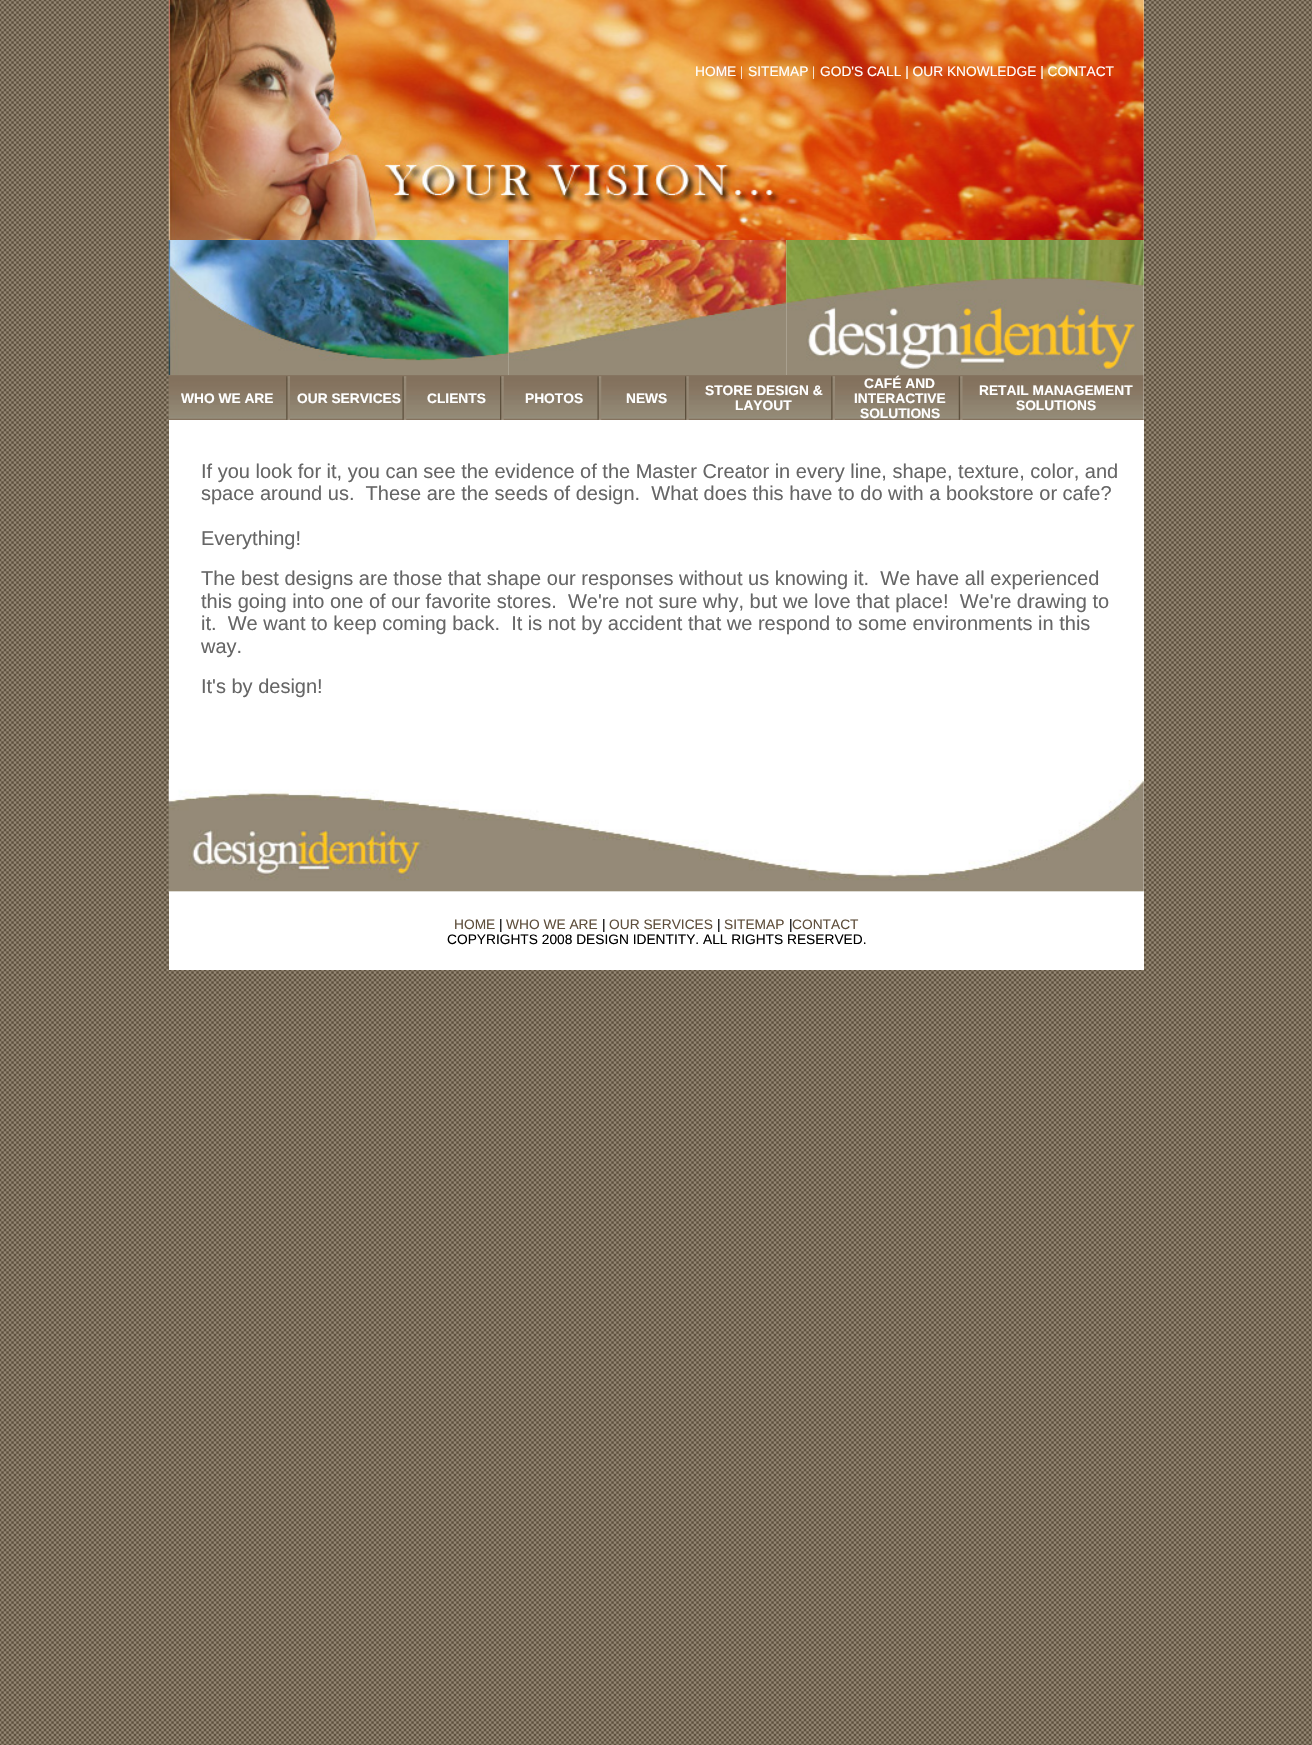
void draw(SkCanvas* canvas) {
	SkPaint paint;
	paint.setAntiAlias(true);
	canvas->clear(0xffffffff);
	canvas->drawImageRect(SkImages::DeferredFromEncodedData(SkData::MakeFromFileName("img1.png")), SkRect::MakeXYWH(0, 0, 1312, 1745), SkSamplingOptions());
	paint.setColor(0xffffffff);
	canvas->drawRect(SkRect::MakeXYWH(169, 0, 975, 970), paint);
	canvas->drawImageRect(SkImages::DeferredFromEncodedData(SkData::MakeFromFileName("img2.png")), SkRect::MakeXYWH(168, 0, 976, 240), SkSamplingOptions());
	SkFont f1(fontMgr->matchFamilyStyle("Liberation Sans", SkFontStyle::Normal()), 13.75);
	f1.setSubpixel(true);
	canvas->drawString("HOME", 695, 76, f1, paint);
	SkFont f2(fontMgr->matchFamilyStyle("Liberation Serif", SkFontStyle::Normal()), 13.75);
	f2.setSubpixel(true);
	canvas->drawString("|", 740, 76, f2, paint);
	canvas->drawString("SITEMAP", 748, 76, f1, paint);
	canvas->drawString("|", 812, 76, f2, paint);
	canvas->drawString("GOD'S CALL | OUR KNOWLEDGE | CONTACT", 820, 76, f1, paint);
	canvas->drawImageRect(SkImages::DeferredFromEncodedData(SkData::MakeFromFileName("img3.png")), SkRect::MakeXYWH(168, 240, 341, 135), SkSamplingOptions());
	canvas->drawImageRect(SkImages::DeferredFromEncodedData(SkData::MakeFromFileName("img4.png")), SkRect::MakeXYWH(508, 240, 279, 135), SkSamplingOptions());
	canvas->drawImageRect(SkImages::DeferredFromEncodedData(SkData::MakeFromFileName("img5.png")), SkRect::MakeXYWH(786, 240, 358, 135), SkSamplingOptions());
	canvas->drawImageRect(SkImages::DeferredFromEncodedData(SkData::MakeFromFileName("img6.png")), SkRect::MakeXYWH(168, 375, 976, 45), SkSamplingOptions());
	SkFont f3(fontMgr->matchFamilyStyle("Liberation Sans", SkFontStyle::Bold()), 13.75);
	f3.setSubpixel(true);
	canvas->drawString("WHO WE ARE", 181, 403, f3, paint);
	canvas->drawImageRect(SkImages::DeferredFromEncodedData(SkData::MakeFromFileName("img7.png")), SkRect::MakeXYWH(286, 376, 4, 44), SkSamplingOptions());
	canvas->drawString("OUR SERVICES", 297, 403, f3, paint);
	canvas->drawImageRect(SkImages::DeferredFromEncodedData(SkData::MakeFromFileName("img8.png")), SkRect::MakeXYWH(402, 376, 5, 44), SkSamplingOptions());
	canvas->drawString("CLIENTS", 427, 403, f3, paint);
	canvas->drawImageRect(SkImages::DeferredFromEncodedData(SkData::MakeFromFileName("img9.png")), SkRect::MakeXYWH(500, 376, 4, 44), SkSamplingOptions());
	canvas->drawString("PHOTOS", 525, 403, f3, paint);
	canvas->drawImageRect(SkImages::DeferredFromEncodedData(SkData::MakeFromFileName("img10.png")), SkRect::MakeXYWH(597, 376, 5, 44), SkSamplingOptions());
	canvas->drawString("NEWS", 626, 403, f3, paint);
	canvas->drawImageRect(SkImages::DeferredFromEncodedData(SkData::MakeFromFileName("img11.png")), SkRect::MakeXYWH(685, 376, 4, 44), SkSamplingOptions());
	canvas->drawString("STORE DESIGN &", 705, 395, f3, paint);
	canvas->drawString("LAYOUT", 735, 410, f3, paint);
	canvas->drawImageRect(SkImages::DeferredFromEncodedData(SkData::MakeFromFileName("img12.png")), SkRect::MakeXYWH(831, 376, 4, 44), SkSamplingOptions());
	canvas->drawString("CAFÉ AND", 864, 388, f3, paint);
	canvas->drawString("INTERACTIVE", 854, 403, f3, paint);
	canvas->drawString("SOLUTIONS", 860, 418, f3, paint);
	canvas->drawImageRect(SkImages::DeferredFromEncodedData(SkData::MakeFromFileName("img13.png")), SkRect::MakeXYWH(958, 376, 5, 44), SkSamplingOptions());
	canvas->drawString("RETAIL MANAGEMENT", 979, 395, f3, paint);
	canvas->drawString("SOLUTIONS", 1016, 410, f3, paint);
	SkFont f4(fontMgr->matchFamilyStyle("Liberation Sans", SkFontStyle::Normal()), 20);
	f4.setSubpixel(true);
	paint.setColor(0xff666666);
	canvas->drawString("If you look for it, you can see the evidence of the Master Creator in every line, shape, texture, color, and", 201, 478, f4, paint);
	canvas->drawString("space around us.  These are the seeds of design.  What does this have to do with a bookstore or cafe?", 201, 500, f4, paint);
	canvas->drawString("Everything!", 201, 545, f4, paint);
	canvas->drawString("The best designs are those that shape our responses without us knowing it.  We have all experienced", 201, 585, f4, paint);
	canvas->drawString("this going into one of our favorite stores.  We're not sure why, but we love that place!  We're drawing to", 201, 608, f4, paint);
	canvas->drawString("it.  We want to keep coming back.  It is not by accident that we respond to some environments in this", 201, 630, f4, paint);
	canvas->drawString("way.", 201, 653, f4, paint);
	canvas->drawString("It's by design!", 201, 693, f4, paint);
	canvas->drawImageRect(SkImages::DeferredFromEncodedData(SkData::MakeFromFileName("img14.png")), SkRect::MakeXYWH(168, 780, 976, 113), SkSamplingOptions());
	paint.setColor(0xff5f4f3c);
	canvas->drawString("HOME", 454, 929, f1, paint);
	paint.setColor(0xff000000);
	canvas->drawString("|", 499, 929, f1, paint);
	paint.setColor(0xff5f4f3c);
	canvas->drawString("WHO WE ARE", 506, 929, f1, paint);
	paint.setColor(0xff000000);
	canvas->drawString("|", 602, 929, f1, paint);
	paint.setColor(0xff5f4f3c);
	canvas->drawString("OUR SERVICES", 609, 929, f1, paint);
	paint.setColor(0xff000000);
	canvas->drawString("|", 717, 929, f1, paint);
	paint.setColor(0xff5f4f3c);
	canvas->drawString("SITEMAP", 724, 929, f1, paint);
	paint.setColor(0xff000000);
	canvas->drawString("|", 789, 929, f1, paint);
	paint.setColor(0xff5f4f3c);
	canvas->drawString("CONTACT", 792, 929, f1, paint);
	paint.setColor(0xff000000);
	canvas->drawString("COPYRIGHTS 2008 DESIGN IDENTITY. ALL RIGHTS RESERVED.", 447, 944, f1, paint);
}
